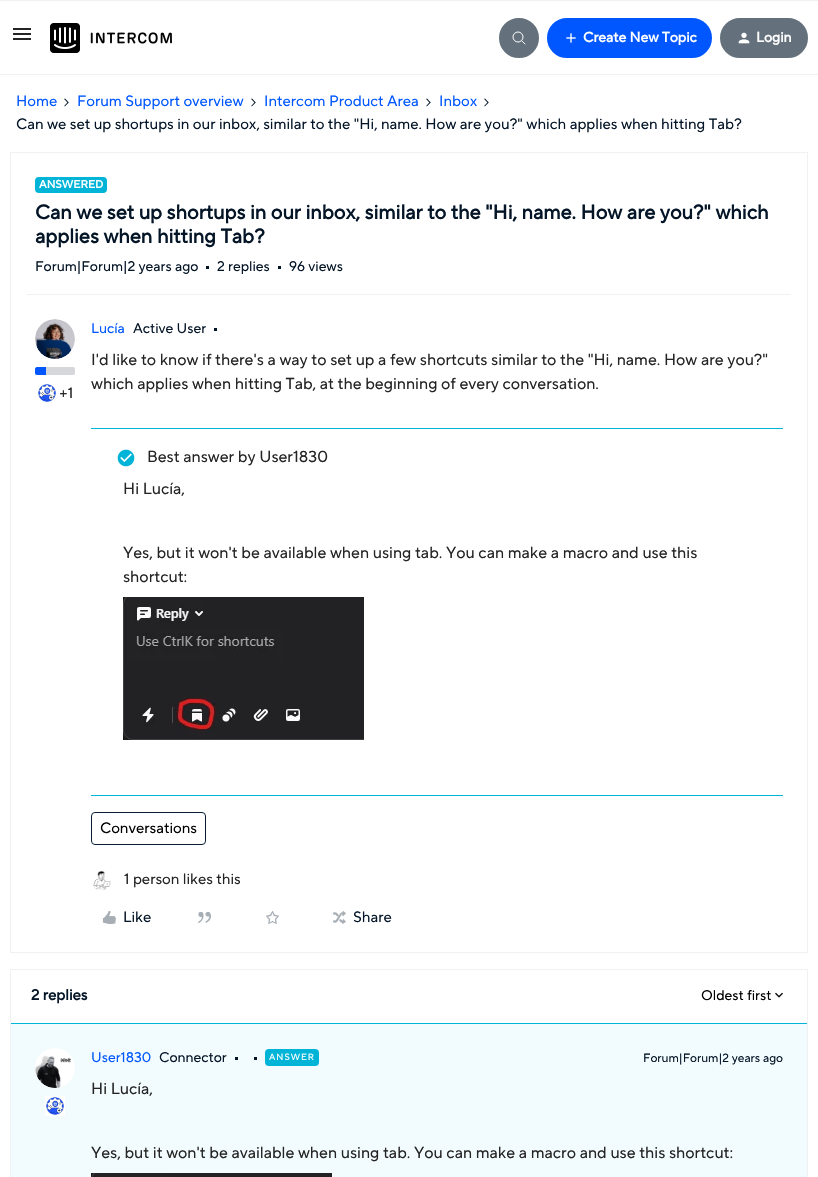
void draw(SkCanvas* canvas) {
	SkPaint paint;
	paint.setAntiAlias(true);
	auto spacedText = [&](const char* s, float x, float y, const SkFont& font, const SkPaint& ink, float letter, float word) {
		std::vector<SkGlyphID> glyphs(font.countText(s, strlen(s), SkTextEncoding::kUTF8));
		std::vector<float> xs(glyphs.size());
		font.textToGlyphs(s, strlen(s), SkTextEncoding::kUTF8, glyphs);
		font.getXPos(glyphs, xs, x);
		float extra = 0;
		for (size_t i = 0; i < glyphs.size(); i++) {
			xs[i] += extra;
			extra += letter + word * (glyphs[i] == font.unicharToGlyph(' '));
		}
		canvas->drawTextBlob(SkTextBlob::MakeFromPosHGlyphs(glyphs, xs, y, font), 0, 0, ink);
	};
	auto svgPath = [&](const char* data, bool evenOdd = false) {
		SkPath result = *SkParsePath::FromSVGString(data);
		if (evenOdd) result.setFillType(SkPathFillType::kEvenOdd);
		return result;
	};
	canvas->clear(0xffffffff);
	paint.setColor(0xfff2fbfd);
	canvas->drawRect(SkRect::MakeXYWH(11, 1024, 796, 153), paint);
	paint.setColor(0xfff1f1f1);
	canvas->drawRect(SkRect::MakeXYWH(0, 0, 818, 1), paint);
	canvas->drawRect(SkRect::MakeXYWH(0, 74, 818, 1), paint);
	canvas->drawImageRect(SkImages::DeferredFromEncodedData(SkData::MakeFromFileName("img1.png")), SkRect::MakeXYWH(13, 28, 18, 12), SkSamplingOptions());
	canvas->drawImageRect(SkImages::DeferredFromEncodedData(SkData::MakeFromFileName("img2.png")), SkRect::MakeXYWH(50, 23, 122, 30), SkSamplingOptions());
	paint.setColor(0xff64707b);
	canvas->drawCircle(519, 38, 19, paint);
	paint.setStroke(true);
	paint.setStrokeWidth(2);
	canvas->drawCircle(519, 38, 19, paint);
	paint.setStrokeWidth(1);
	paint.setColor(0xffffffff);
	canvas->drawCircle(518, 37, 5, paint);
	paint.setStrokeCap(SkPaint::kRound_Cap);
	canvas->drawPath(svgPath("M522 41L525 44"), paint);
	paint.setStroke(false);
	paint.setColor(0xff0057ff);
	canvas->drawRoundRect(SkRect::MakeXYWH(548, 19, 163, 38), 19, 19, paint);
	paint.setStroke(true);
	paint.setStrokeWidth(2);
	paint.setStrokeCap(SkPaint::kButt_Cap);
	canvas->drawRoundRect(SkRect::MakeXYWH(548, 19, 163, 38), 19, 19, paint);
	canvas->drawImageRect(SkImages::DeferredFromEncodedData(SkData::MakeFromFileName("img3.png")), SkRect::MakeXYWH(566, 33, 10, 10), SkSamplingOptions());
	SkFont f1(fontMgr->matchFamilyStyle("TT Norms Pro", SkFontStyle::Bold()), 14);
	f1.setSubpixel(true);
	paint.setStroke(false);
	paint.setColor(0xffffffff);
	canvas->drawString("Create New Topic", 583, 42, f1, paint);
	paint.setColor(0xff64707b);
	canvas->drawRoundRect(SkRect::MakeXYWH(721, 19, 86, 38), 19, 19, paint);
	paint.setStroke(true);
	canvas->drawRoundRect(SkRect::MakeXYWH(721, 19, 86, 38), 19, 19, paint);
	canvas->drawImageRect(SkImages::DeferredFromEncodedData(SkData::MakeFromFileName("img4.png")), SkRect::MakeXYWH(738, 32, 12, 12), SkSamplingOptions());
	paint.setStroke(false);
	paint.setColor(0xffffffff);
	canvas->drawString("Login", 756, 42, f1, paint);
	SkFont f2(fontMgr->matchFamilyStyle("TT Norms Pro", SkFontStyle::Normal()), 15);
	f2.setSubpixel(true);
	paint.setColor(0xff0057ff);
	canvas->drawString("Home", 16, 106, f2, paint);
	canvas->drawImageRect(SkImages::DeferredFromEncodedData(SkData::MakeFromFileName("img5.png")), SkRect::MakeXYWH(64, 98, 5, 9), SkSamplingOptions());
	canvas->drawString("Forum Support overview", 77, 106, f2, paint);
	canvas->drawImageRect(SkImages::DeferredFromEncodedData(SkData::MakeFromFileName("img5.png")), SkRect::MakeXYWH(251, 98, 5, 9), SkSamplingOptions());
	canvas->drawString("Intercom Product Area", 264, 106, f2, paint);
	canvas->drawImageRect(SkImages::DeferredFromEncodedData(SkData::MakeFromFileName("img5.png")), SkRect::MakeXYWH(426, 98, 5, 9), SkSamplingOptions());
	canvas->drawString("Inbox", 439, 106, f2, paint);
	canvas->drawImageRect(SkImages::DeferredFromEncodedData(SkData::MakeFromFileName("img5.png")), SkRect::MakeXYWH(484, 98, 5, 9), SkSamplingOptions());
	paint.setColor(0xff041527);
	canvas->drawString("Can we set up shortups in our inbox, similar to the \"Hi, name. How are you?\" which applies when hitting Tab?", 16, 129, f2, paint);
	paint.setStroke(true);
	paint.setStrokeWidth(1);
	paint.setColor(0xfff1f1f1);
	canvas->drawRect(SkRect::MakeXYWH(10.5, 152.5, 797, 800), paint);
	paint.setStroke(false);
	paint.setColor(0xff00b4d8);
	canvas->drawRoundRect(SkRect::MakeXYWH(35, 177, 72, 16), 4, 4, paint);
	SkFont f3(fontMgr->matchFamilyStyle("TT Norms Pro", SkFontStyle::Bold()), 11);
	f3.setSubpixel(true);
	paint.setColor(0xffffffff);
	canvas->drawString("ANSWERED", 39, 188, f3, paint);
	SkFont f4(fontMgr->matchFamilyStyle("TT Norms Pro", SkFontStyle::Bold()), 20);
	f4.setSubpixel(true);
	paint.setColor(0xff041527);
	canvas->drawString("Can we set up shortups in our inbox, similar to the \"Hi, name. How are you?\" which", 35, 219, f4, paint);
	canvas->drawString("applies when hitting Tab?", 35, 243, f4, paint);
	SkFont f5(fontMgr->matchFamilyStyle("TT Norms Pro", SkFontStyle::Normal()), 14);
	f5.setSubpixel(true);
	canvas->drawString("Forum|Forum|2 years ago", 35, 271, f5, paint);
	canvas->drawRect(SkRect::MakeXYWH(206, 266, 3, 3), paint);
	canvas->drawString("2 replies", 217, 271, f5, paint);
	canvas->drawRect(SkRect::MakeXYWH(278, 266, 3, 3), paint);
	canvas->drawString("96 views", 289, 271, f5, paint);
	paint.setColor(0xfff1f1f1);
	canvas->drawRect(SkRect::MakeXYWH(27, 294, 764, 1), paint);
	paint.setColor(0xff0057ff);
	canvas->drawString("Lucía", 91, 333, f5, paint);
	paint.setColor(0xff041527);
	canvas->drawString("Active User", 133, 333, f5, paint);
	canvas->drawRect(SkRect::MakeXYWH(214, 328, 3, 3), paint);
	canvas->drawImageRect(SkImages::DeferredFromEncodedData(SkData::MakeFromFileName("img6.png")), SkRect::MakeXYWH(35, 319, 40, 40), SkSamplingOptions());
	paint.setColor(0xffd5d7db);
	canvas->drawRoundRect(SkRect::MakeXYWH(35, 367, 40, 8), 2, 2, paint);
	paint.setColor(0xff0057ff);
	canvas->drawPath(svgPath("M37 367H46V375H37C36 375 35 374 35 373V369C35 368 36 367 37 367Z"), paint);
	canvas->drawImageRect(SkImages::DeferredFromEncodedData(SkData::MakeFromFileName("img7.png")), SkRect::MakeXYWH(38, 384, 18, 18), SkSamplingOptions());
	paint.setColor(0xff242424);
	canvas->drawString("+1", 59, 398, f2, paint);
	SkFont f6(fontMgr->matchFamilyStyle("TT Norms Pro", SkFontStyle::Normal()), 16);
	f6.setSubpixel(true);
	canvas->drawString("I'd like to know if there's a way to set up a few shortcuts similar to the \"Hi, name. How are you?\"", 91, 365, f6, paint);
	canvas->drawString("which applies when hitting Tab, at the beginning of every conversation.", 91, 389, f6, paint);
	paint.setColor(0xff00b4d8);
	canvas->drawRect(SkRect::MakeXYWH(91, 428, 692, 1), paint);
	canvas->drawRect(SkRect::MakeXYWH(91, 795, 692, 1), paint);
	canvas->drawImageRect(SkImages::DeferredFromEncodedData(SkData::MakeFromFileName("img8.png")), SkRect::MakeXYWH(117, 449, 18, 18), SkSamplingOptions());
	paint.setColor(0xff242424);
	canvas->drawString("Best answer by User1830", 147, 462, f6, paint);
	canvas->drawString("Hi Lucía,", 123, 494, f6, paint);
	canvas->drawString("Yes, but it won't be available when using tab. You can make a macro and use this", 123, 558, f6, paint);
	canvas->drawString("shortcut:", 123, 582, f6, paint);
	canvas->drawImageRect(SkImages::DeferredFromEncodedData(SkData::MakeFromFileName("img9.png")), SkRect::MakeXYWH(123, 597, 241, 143), SkSamplingOptions());
	paint.setStroke(true);
	paint.setColor(0xff081d34);
	canvas->drawRoundRect(SkRect::MakeXYWH(91.5, 812.5, 114, 32), 3.5, 3.5, paint);
	paint.setStroke(false);
	paint.setColor(0xff000000);
	canvas->drawString("Conversations", 100, 833, f2, paint);
	canvas->drawImageRect(SkImages::DeferredFromEncodedData(SkData::MakeFromFileName("img10.png")), SkRect::MakeXYWH(93, 870, 18, 20), SkSamplingOptions());
	paint.setColor(0xff242424);
	canvas->drawString("1 person likes this", 124, 884, f2, paint);
	canvas->drawImageRect(SkImages::DeferredFromEncodedData(SkData::MakeFromFileName("img11.png")), SkRect::MakeXYWH(102, 910, 15, 15), SkSamplingOptions());
	paint.setColor(0xff041527);
	canvas->drawString("Like", 123, 922, f2, paint);
	canvas->drawImageRect(SkImages::DeferredFromEncodedData(SkData::MakeFromFileName("img12.png")), SkRect::MakeXYWH(198, 911, 13, 12), SkSamplingOptions());
	canvas->drawImageRect(SkImages::DeferredFromEncodedData(SkData::MakeFromFileName("img13.png")), SkRect::MakeXYWH(266, 911, 13, 13), SkSamplingOptions());
	canvas->drawImageRect(SkImages::DeferredFromEncodedData(SkData::MakeFromFileName("img14.png")), SkRect::MakeXYWH(333, 911, 13, 13), SkSamplingOptions());
	canvas->drawString("Share", 353, 922, f2, paint);
	paint.setStroke(true);
	paint.setColor(0xfff1f1f1);
	canvas->drawRect(SkRect::MakeXYWH(10.5, 969.5, 797, 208), paint);
	SkFont f7(fontMgr->matchFamilyStyle("TT Norms Pro", SkFontStyle::Bold()), 15);
	f7.setSubpixel(true);
	paint.setStroke(false);
	paint.setColor(0xff041527);
	canvas->drawString("2 replies", 31, 1000, f7, paint);
	paint.setColor(0xff000000);
	canvas->drawString("Oldest first", 701, 1000, f5, paint);
	canvas->drawImageRect(SkImages::DeferredFromEncodedData(SkData::MakeFromFileName("img15.png")), SkRect::MakeXYWH(775, 992, 8, 6), SkSamplingOptions());
	paint.setColor(0xff00b4d8);
	canvas->drawRect(SkRect::MakeXYWH(11, 1023, 796, 1), paint);
	paint.setColor(0xffffffff);
	canvas->drawCircle(55, 1068, 20, paint);
	canvas->drawImageRect(SkImages::DeferredFromEncodedData(SkData::MakeFromFileName("img16.png")), SkRect::MakeXYWH(35, 1055, 36, 33), SkSamplingOptions());
	canvas->drawImageRect(SkImages::DeferredFromEncodedData(SkData::MakeFromFileName("img17.png")), SkRect::MakeXYWH(45, 1096, 20, 20), SkSamplingOptions());
	paint.setColor(0xff0057ff);
	canvas->drawString("User1830", 91, 1062, f5, paint);
	paint.setColor(0xff041527);
	canvas->drawString("Connector", 159, 1062, f5, paint);
	canvas->drawRect(SkRect::MakeXYWH(235, 1057, 3, 3), paint);
	canvas->drawRect(SkRect::MakeXYWH(254, 1057, 3, 3), paint);
	paint.setColor(0xff00b4d8);
	canvas->drawRoundRect(SkRect::MakeXYWH(265, 1049, 54, 17), 4, 4, paint);
	SkFont f8(fontMgr->matchFamilyStyle("TT Norms Pro", SkFontStyle::Normal()), 9);
	f8.setSubpixel(true);
	paint.setColor(0xffffffff);
	spacedText("ANSWER", 269, 1060, f8, paint, 1, 0);
	SkFont f9(fontMgr->matchFamilyStyle("TT Norms Pro", SkFontStyle::Normal()), 12);
	f9.setSubpixel(true);
	paint.setColor(0xff041527);
	canvas->drawString("Forum|Forum|2 years ago", 643, 1062, f9, paint);
	paint.setColor(0xff242424);
	canvas->drawString("Hi Lucía,", 91, 1094, f6, paint);
	canvas->drawString("Yes, but it won't be available when using tab. You can make a macro and use this shortcut:", 91, 1158, f6, paint);
	canvas->drawImageRect(SkImages::DeferredFromEncodedData(SkData::MakeFromFileName("img18.png")), SkRect::MakeXYWH(91, 1173, 241, 4), SkSamplingOptions());
}
